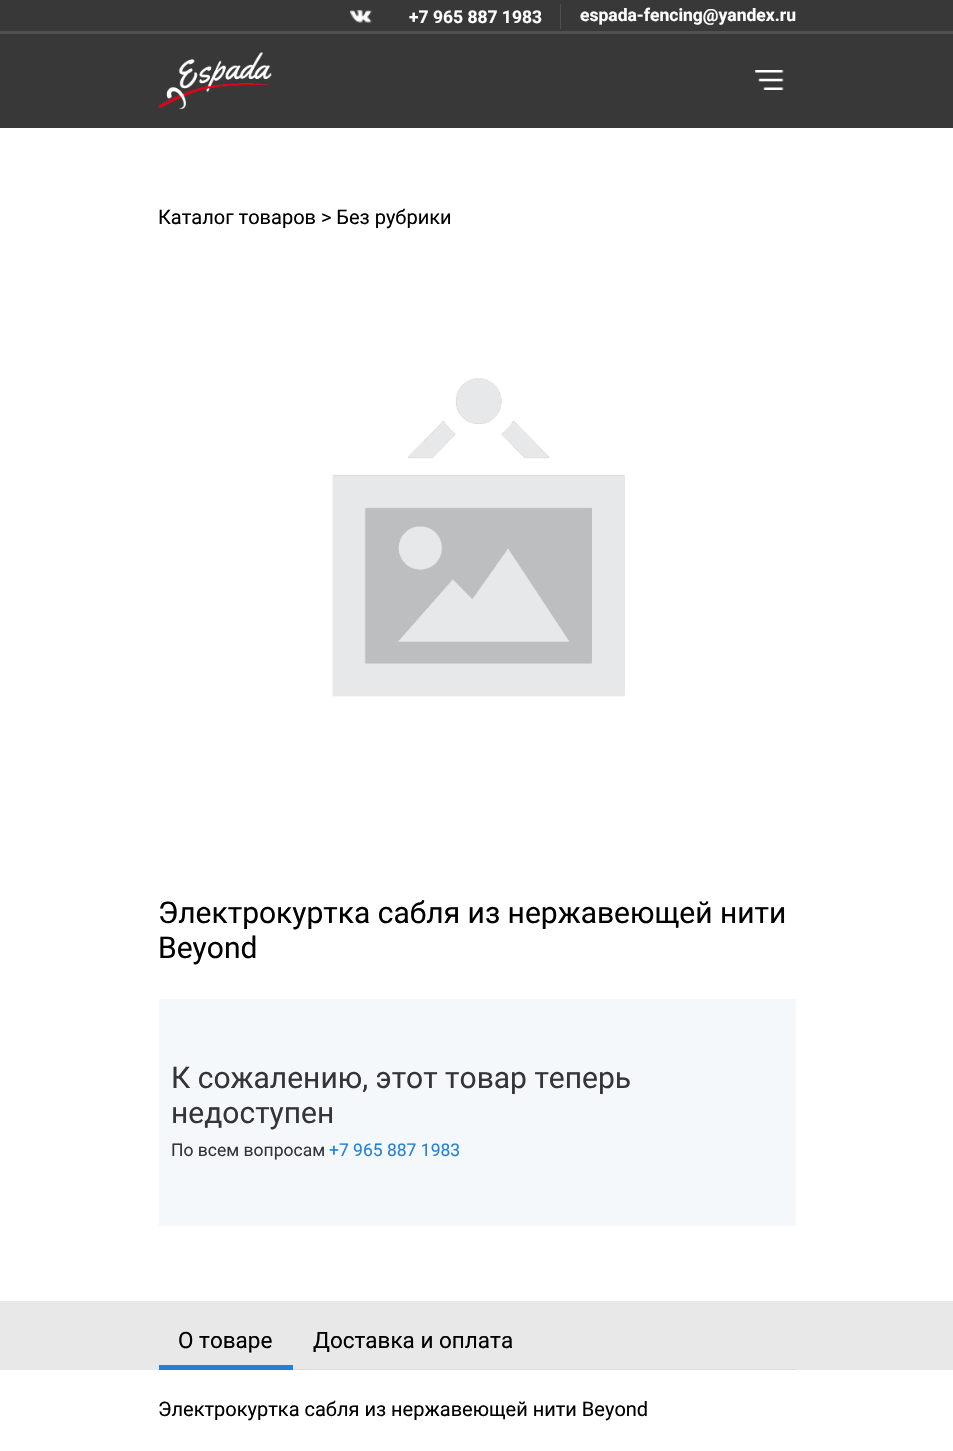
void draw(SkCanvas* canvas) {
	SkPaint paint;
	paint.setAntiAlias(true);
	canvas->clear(0xffffffff);
	paint.setColor(0xff383838);
	canvas->drawRect(SkRect::MakeXYWH(0, 0, 953, 31), paint);
	paint.setColor(0xff505050);
	canvas->drawRect(SkRect::MakeXYWH(0, 31, 953, 3), paint);
	canvas->drawImageRect(SkImages::DeferredFromEncodedData(SkData::MakeFromFileName("img1.png")), SkRect::MakeXYWH(350, 10, 22, 13), SkSamplingOptions());
	SkFont f1(fontMgr->matchFamilyStyle("Roboto", SkFontStyle::Bold()), 17.5);
	f1.setSubpixel(true);
	paint.setColor(0xffffffff);
	canvas->drawString("+7 965 887 1983", 409, 23, f1, paint);
	paint.setColor(0xff505050);
	canvas->drawRect(SkRect::MakeXYWH(560, 4, 1, 25), paint);
	paint.setColor(0xffffffff);
	canvas->drawString("espada-fencing@yandex.ru", 580, 21, f1, paint);
	paint.setColor(0xff383838);
	canvas->drawRect(SkRect::MakeXYWH(0, 34, 953, 94), paint);
	canvas->drawImageRect(SkImages::DeferredFromEncodedData(SkData::MakeFromFileName("img2.png")), SkRect::MakeXYWH(158, 52, 114, 57), SkSamplingOptions());
	canvas->drawImageRect(SkImages::DeferredFromEncodedData(SkData::MakeFromFileName("img3.png")), SkRect::MakeXYWH(755, 70, 29, 20), SkSamplingOptions());
	SkFont f2(fontMgr->matchFamilyStyle("Roboto", SkFontStyle::Normal()), 20);
	f2.setSubpixel(true);
	paint.setColor(0xff000000);
	canvas->drawString("Каталог товаров > Без рубрики", 158, 224, f2, paint);
	canvas->drawImageRect(SkImages::DeferredFromEncodedData(SkData::MakeFromFileName("img4.png")), SkRect::MakeXYWH(332, 378, 293, 319), SkSamplingOptions());
	SkFont f3(fontMgr->matchFamilyStyle("Roboto", SkFontStyle::Normal()), 30);
	f3.setSubpixel(true);
	canvas->drawString("Электрокуртка сабля из нержавеющей нити", 158, 923, f3, paint);
	canvas->drawString("Beyond", 158, 958, f3, paint);
	paint.setColor(0xfff5f8fa);
	canvas->drawRect(SkRect::MakeXYWH(159, 999, 637, 227), paint);
	paint.setColor(0xff343538);
	canvas->drawString("К сожалению, этот товар теперь", 171, 1088, f3, paint);
	canvas->drawString("недоступен", 171, 1123, f3, paint);
	SkFont f4(fontMgr->matchFamilyStyle("Roboto", SkFontStyle::Normal()), 17.5);
	f4.setSubpixel(true);
	canvas->drawString("По всем вопросам", 171, 1156, f4, paint);
	paint.setColor(0xff2181d3);
	canvas->drawString("+7 965 887 1983", 329, 1156, f4, paint);
	paint.setColor(0xffe8e8e8);
	canvas->drawRect(SkRect::MakeXYWH(0, 1301, 953, 69), paint);
	paint.setColor(0xffdddddd);
	canvas->drawRect(SkRect::MakeXYWH(293, 1369, 503, 1), paint);
	SkFont f5(fontMgr->matchFamilyStyle("Roboto", SkFontStyle::Normal()), 22.5);
	f5.setSubpixel(true);
	paint.setColor(0xff000000);
	canvas->drawString("О товаре", 178, 1348, f5, paint);
	paint.setColor(0xff2181d3);
	canvas->drawRect(SkRect::MakeXYWH(159, 1365, 134, 5), paint);
	paint.setColor(0xff000000);
	canvas->drawString("Доставка и оплата", 313, 1348, f5, paint);
	canvas->drawString("Электрокуртка сабля из нержавеющей нити Beyond", 158, 1416, f2, paint);
}
